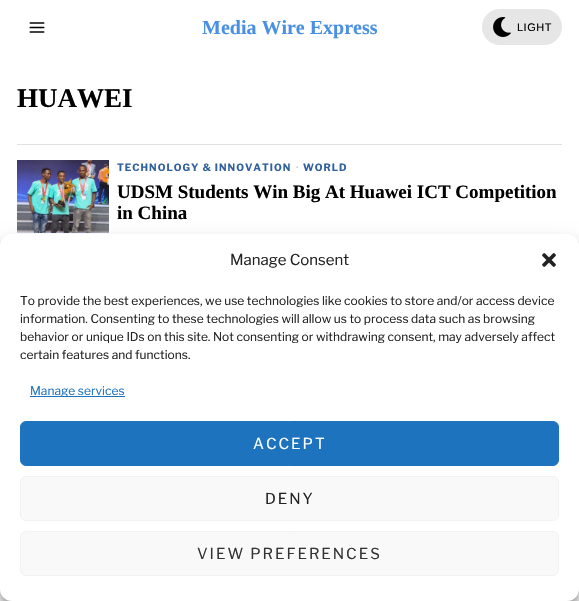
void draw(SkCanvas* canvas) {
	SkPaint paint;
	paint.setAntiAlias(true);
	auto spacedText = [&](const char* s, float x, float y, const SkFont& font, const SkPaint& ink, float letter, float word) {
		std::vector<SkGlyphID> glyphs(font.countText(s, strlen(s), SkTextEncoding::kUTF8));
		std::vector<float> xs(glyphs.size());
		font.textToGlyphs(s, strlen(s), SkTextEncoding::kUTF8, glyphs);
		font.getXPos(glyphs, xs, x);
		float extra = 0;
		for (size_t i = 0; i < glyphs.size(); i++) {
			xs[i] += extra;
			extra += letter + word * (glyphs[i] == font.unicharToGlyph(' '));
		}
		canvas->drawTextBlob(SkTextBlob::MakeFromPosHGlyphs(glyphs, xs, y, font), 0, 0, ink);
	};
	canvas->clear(0xffffffff);
	canvas->drawImageRect(SkImages::DeferredFromEncodedData(SkData::MakeFromFileName("img1.png")), SkRect::MakeXYWH(29, 22, 16, 11), SkSamplingOptions());
	SkFont f1(fontMgr->matchFamilyStyle("Tinos", SkFontStyle::Bold()), 20);
	f1.setSubpixel(true);
	paint.setColor(0xff4a90e2);
	canvas->drawString("Media Wire Express", 202, 34, f1, paint);
	paint.setColor(0xffe6e6e6);
	canvas->drawRoundRect(SkRect::MakeXYWH(482, 9, 80, 36), 18, 18, paint);
	canvas->drawImageRect(SkImages::DeferredFromEncodedData(SkData::MakeFromFileName("img2.png")), SkRect::MakeXYWH(493, 17, 18, 20), SkSamplingOptions());
	SkFont f2(fontMgr->matchFamilyStyle("Liberation Sans", SkFontStyle::Normal()), 11);
	f2.setSubpixel(true);
	paint.setColor(0xff000000);
	spacedText("LIGHT", 517, 31, f2, paint, 0.5, 0);
	paint.setColor(0xffe0e0e0);
	canvas->drawRect(SkRect::MakeXYWH(17, 144, 545, 1), paint);
	SkFont f3(fontMgr->matchFamilyStyle("Tinos", SkFontStyle::Bold()), 27);
	f3.setSubpixel(true);
	paint.setColor(0xff000000);
	canvas->drawString("HUAWEI", 17, 107, f3, paint);
	canvas->drawImageRect(SkImages::DeferredFromEncodedData(SkData::MakeFromFileName("img3.png")), SkRect::MakeXYWH(17, 160, 92, 73), SkSamplingOptions());
	SkFont f4(fontMgr->matchFamilyStyle("Libre Franklin", SkFontStyle::Bold()), 10);
	f4.setSubpixel(true);
	paint.setColor(0xff31609c);
	spacedText("TECHNOLOGY & INNOVATION", 117, 171, f4, paint, 1, 0);
	paint.setColor(0xffcccccc);
	spacedText("·", 296, 171, f4, paint, 1, 0);
	paint.setColor(0xff31609c);
	spacedText("WORLD", 303, 171, f4, paint, 1, 0);
	SkFont f5(fontMgr->matchFamilyStyle("Tinos", SkFontStyle::Bold()), 19);
	f5.setSubpixel(true);
	paint.setColor(0xff000000);
	canvas->drawString("UDSM Students Win Big At Huawei ICT Competition", 117, 198, f5, paint);
	canvas->drawString("in China", 117, 219, f5, paint);
	paint.setColor(0xfffafafa);
	canvas->drawRect(SkRect::MakeXYWH(0, 589, 579, 12), paint);
	paint.setColor(0x3b000000);
	paint.setMaskFilter(SkMaskFilter::MakeBlur(kNormal_SkBlurStyle, 3));
	canvas->drawRoundRect(SkRect::MakeXYWH(0, 240, 579, 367), 12, 12, paint);
	paint.setMaskFilter(nullptr);
	paint.setColor(0x30000000);
	paint.setMaskFilter(SkMaskFilter::MakeBlur(kNormal_SkBlurStyle, 10));
	canvas->drawRoundRect(SkRect::MakeXYWH(0, 244, 579, 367), 12, 12, paint);
	paint.setMaskFilter(nullptr);
	paint.setColor(0xffffffff);
	canvas->drawRoundRect(SkRect::MakeXYWH(0, 234, 579, 367), 12, 12, paint);
	SkFont f6(fontMgr->matchFamilyStyle("Libre Franklin", SkFontStyle::Normal()), 15);
	f6.setSubpixel(true);
	paint.setColor(0xff222222);
	canvas->drawString("Manage Consent", 230, 265, f6, paint);
	canvas->drawImageRect(SkImages::DeferredFromEncodedData(SkData::MakeFromFileName("img4.png")), SkRect::MakeXYWH(542, 253, 14, 14), SkSamplingOptions());
	SkFont f7(fontMgr->matchFamilyStyle("Libre Franklin", SkFontStyle::Normal()), 12);
	f7.setSubpixel(true);
	canvas->drawString("To provide the best experiences, we use technologies like cookies to store and/or access device", 20, 305, f7, paint);
	canvas->drawString("information. Consenting to these technologies will allow us to process data such as browsing", 20, 323, f7, paint);
	canvas->drawString("behavior or unique IDs on this site. Not consenting or withdrawing consent, may adversely affect", 20, 341, f7, paint);
	canvas->drawString("certain features and functions.", 20, 359, f7, paint);
	paint.setColor(0xff1e73be);
	canvas->drawRect(SkRect::MakeXYWH(30, 396, 95, 1), paint);
	canvas->drawString("Manage services", 30, 395, f7, paint);
	canvas->drawRoundRect(SkRect::MakeXYWH(20.5, 421.5, 538, 44), 5.5, 5.5, paint);
	paint.setStroke(true);
	paint.setStrokeWidth(1);
	canvas->drawRoundRect(SkRect::MakeXYWH(20.5, 421.5, 538, 44), 5.5, 5.5, paint);
	paint.setStroke(false);
	paint.setColor(0xffffffff);
	spacedText("ACCEPT", 253, 449, f6, paint, 2, 0);
	paint.setColor(0xfff9f9f9);
	canvas->drawRoundRect(SkRect::MakeXYWH(20.5, 476.5, 538, 44), 5.5, 5.5, paint);
	paint.setStroke(true);
	paint.setColor(0xfff2f2f2);
	canvas->drawRoundRect(SkRect::MakeXYWH(20.5, 476.5, 538, 44), 5.5, 5.5, paint);
	paint.setStroke(false);
	paint.setColor(0xff222222);
	spacedText("DENY", 265, 504, f6, paint, 2, 0);
	paint.setColor(0xfff9f9f9);
	canvas->drawRoundRect(SkRect::MakeXYWH(20.5, 531.5, 538, 44), 5.5, 5.5, paint);
	paint.setStroke(true);
	paint.setColor(0xfff2f2f2);
	canvas->drawRoundRect(SkRect::MakeXYWH(20.5, 531.5, 538, 44), 5.5, 5.5, paint);
	paint.setStroke(false);
	paint.setColor(0xff333333);
	spacedText("VIEW PREFERENCES", 197, 559, f6, paint, 2, 0);
}
